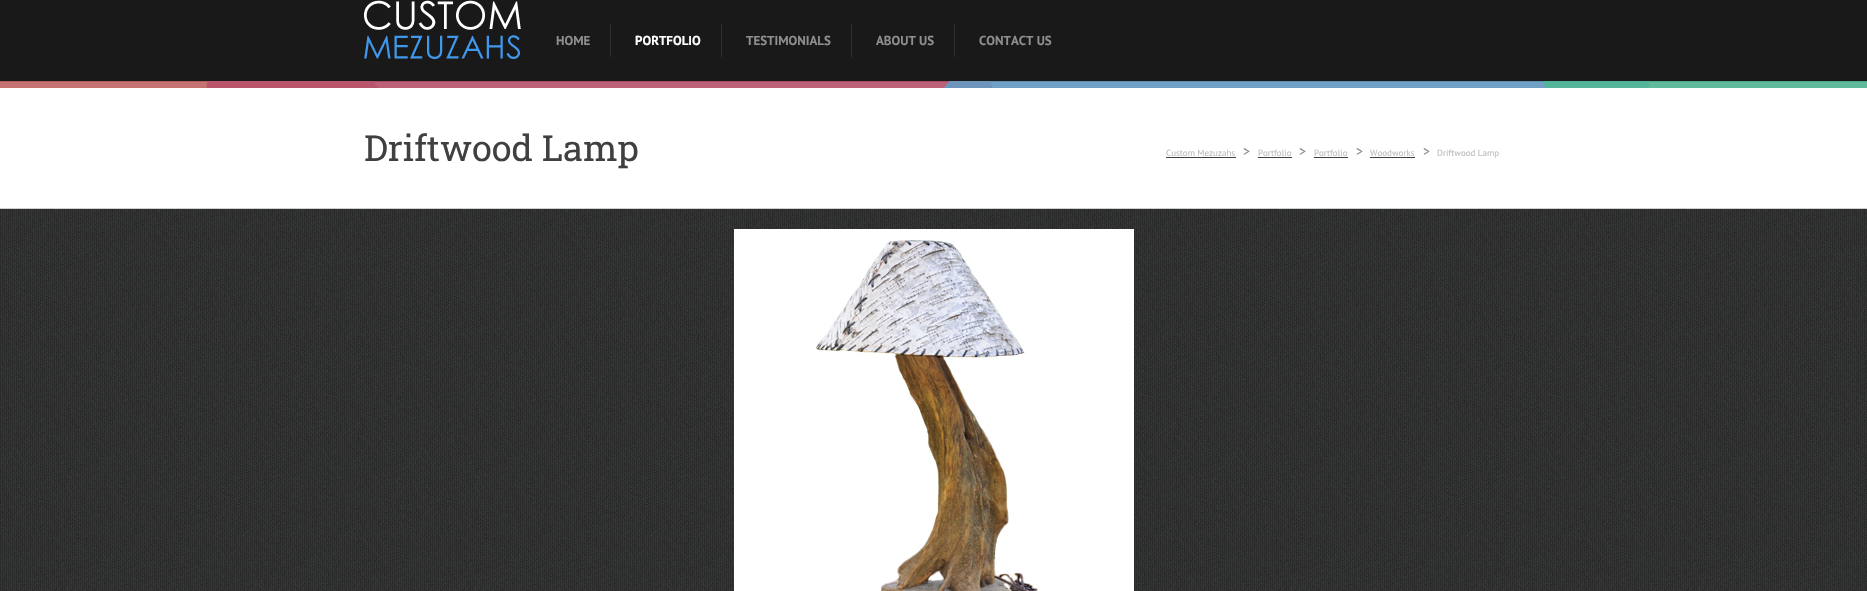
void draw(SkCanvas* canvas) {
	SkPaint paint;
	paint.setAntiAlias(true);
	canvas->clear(0xffffffff);
	paint.setColor(0xff191919);
	canvas->drawRect(SkRect::MakeXYWH(0, 0, 1867, 82), paint);
	canvas->drawImageRect(SkImages::DeferredFromEncodedData(SkData::MakeFromFileName("img1.png")), SkRect::MakeXYWH(0, 81, 1867, 7), SkSamplingOptions());
	canvas->drawImageRect(SkImages::DeferredFromEncodedData(SkData::MakeFromFileName("img2.png")), SkRect::MakeXYWH(364, 0, 157, 59), SkSamplingOptions());
	paint.setColor(0xff2f2f2f);
	canvas->drawRect(SkRect::MakeXYWH(610, 24, 1, 33), paint);
	SkFont f1(fontMgr->matchFamilyStyle("PT Sans", SkFontStyle::Bold()), 13);
	f1.setSubpixel(true);
	paint.setColor(0xff8e8e8e);
	canvas->drawString("HOME", 556, 45, f1, paint);
	paint.setColor(0xff2f2f2f);
	canvas->drawRect(SkRect::MakeXYWH(721, 24, 1, 33), paint);
	paint.setColor(0xffffffff);
	canvas->drawString("PORTFOLIO", 635, 45, f1, paint);
	paint.setColor(0xff2f2f2f);
	canvas->drawRect(SkRect::MakeXYWH(851, 24, 1, 33), paint);
	paint.setColor(0xff8e8e8e);
	canvas->drawString("TESTIMONIALS", 746, 45, f1, paint);
	paint.setColor(0xff2f2f2f);
	canvas->drawRect(SkRect::MakeXYWH(954, 24, 1, 33), paint);
	paint.setColor(0xff8e8e8e);
	canvas->drawString("ABOUT US", 876, 45, f1, paint);
	canvas->drawString("CONTACT US", 979, 45, f1, paint);
	paint.setColor(0xffcfcfcf);
	canvas->drawRect(SkRect::MakeXYWH(0, 208, 1867, 1), paint);
	SkFont f2(fontMgr->matchFamilyStyle("Roboto Slab", SkFontStyle::Normal()), 36);
	f2.setSubpixel(true);
	paint.setColor(0xff404040);
	canvas->drawString("Driftwood Lamp", 364, 161, f2, paint);
	SkFont f3(fontMgr->matchFamilyStyle("PT Sans", SkFontStyle::Normal()), 9);
	f3.setSubpixel(true);
	paint.setColor(0xffbbbbbb);
	canvas->drawString("Custom Mezuzahs", 1166, 156, f3, paint);
	paint.setColor(0xff404040);
	canvas->drawRect(SkRect::MakeXYWH(1166, 157, 70, 1), paint);
	SkFont f4(fontMgr->matchFamilyStyle("PT Sans", SkFontStyle::Normal()), 14);
	f4.setSubpixel(true);
	paint.setColor(0xff838383);
	canvas->drawString(">", 1243, 156, f4, paint);
	paint.setColor(0xffbbbbbb);
	canvas->drawString("Portfolio", 1258, 156, f3, paint);
	paint.setColor(0xff404040);
	canvas->drawRect(SkRect::MakeXYWH(1258, 157, 34, 1), paint);
	paint.setColor(0xff838383);
	canvas->drawString(">", 1299, 156, f4, paint);
	paint.setColor(0xffbbbbbb);
	canvas->drawString("Portfolio", 1314, 156, f3, paint);
	paint.setColor(0xff404040);
	canvas->drawRect(SkRect::MakeXYWH(1314, 157, 34, 1), paint);
	paint.setColor(0xff838383);
	canvas->drawString(">", 1356, 156, f4, paint);
	paint.setColor(0xffbbbbbb);
	canvas->drawString("Woodworks", 1370, 156, f3, paint);
	paint.setColor(0xff404040);
	canvas->drawRect(SkRect::MakeXYWH(1370, 157, 45, 1), paint);
	paint.setColor(0xff838383);
	canvas->drawString(">", 1423, 156, f4, paint);
	paint.setColor(0xffbbbbbb);
	canvas->drawString("Driftwood Lamp", 1437, 156, f3, paint);
	canvas->drawImageRect(SkImages::DeferredFromEncodedData(SkData::MakeFromFileName("img3.png")), SkRect::MakeXYWH(0, 209, 1867, 382), SkSamplingOptions());
	canvas->drawImageRect(SkImages::DeferredFromEncodedData(SkData::MakeFromFileName("img4.png")), SkRect::MakeXYWH(734, 229, 400, 362), SkSamplingOptions());
}
